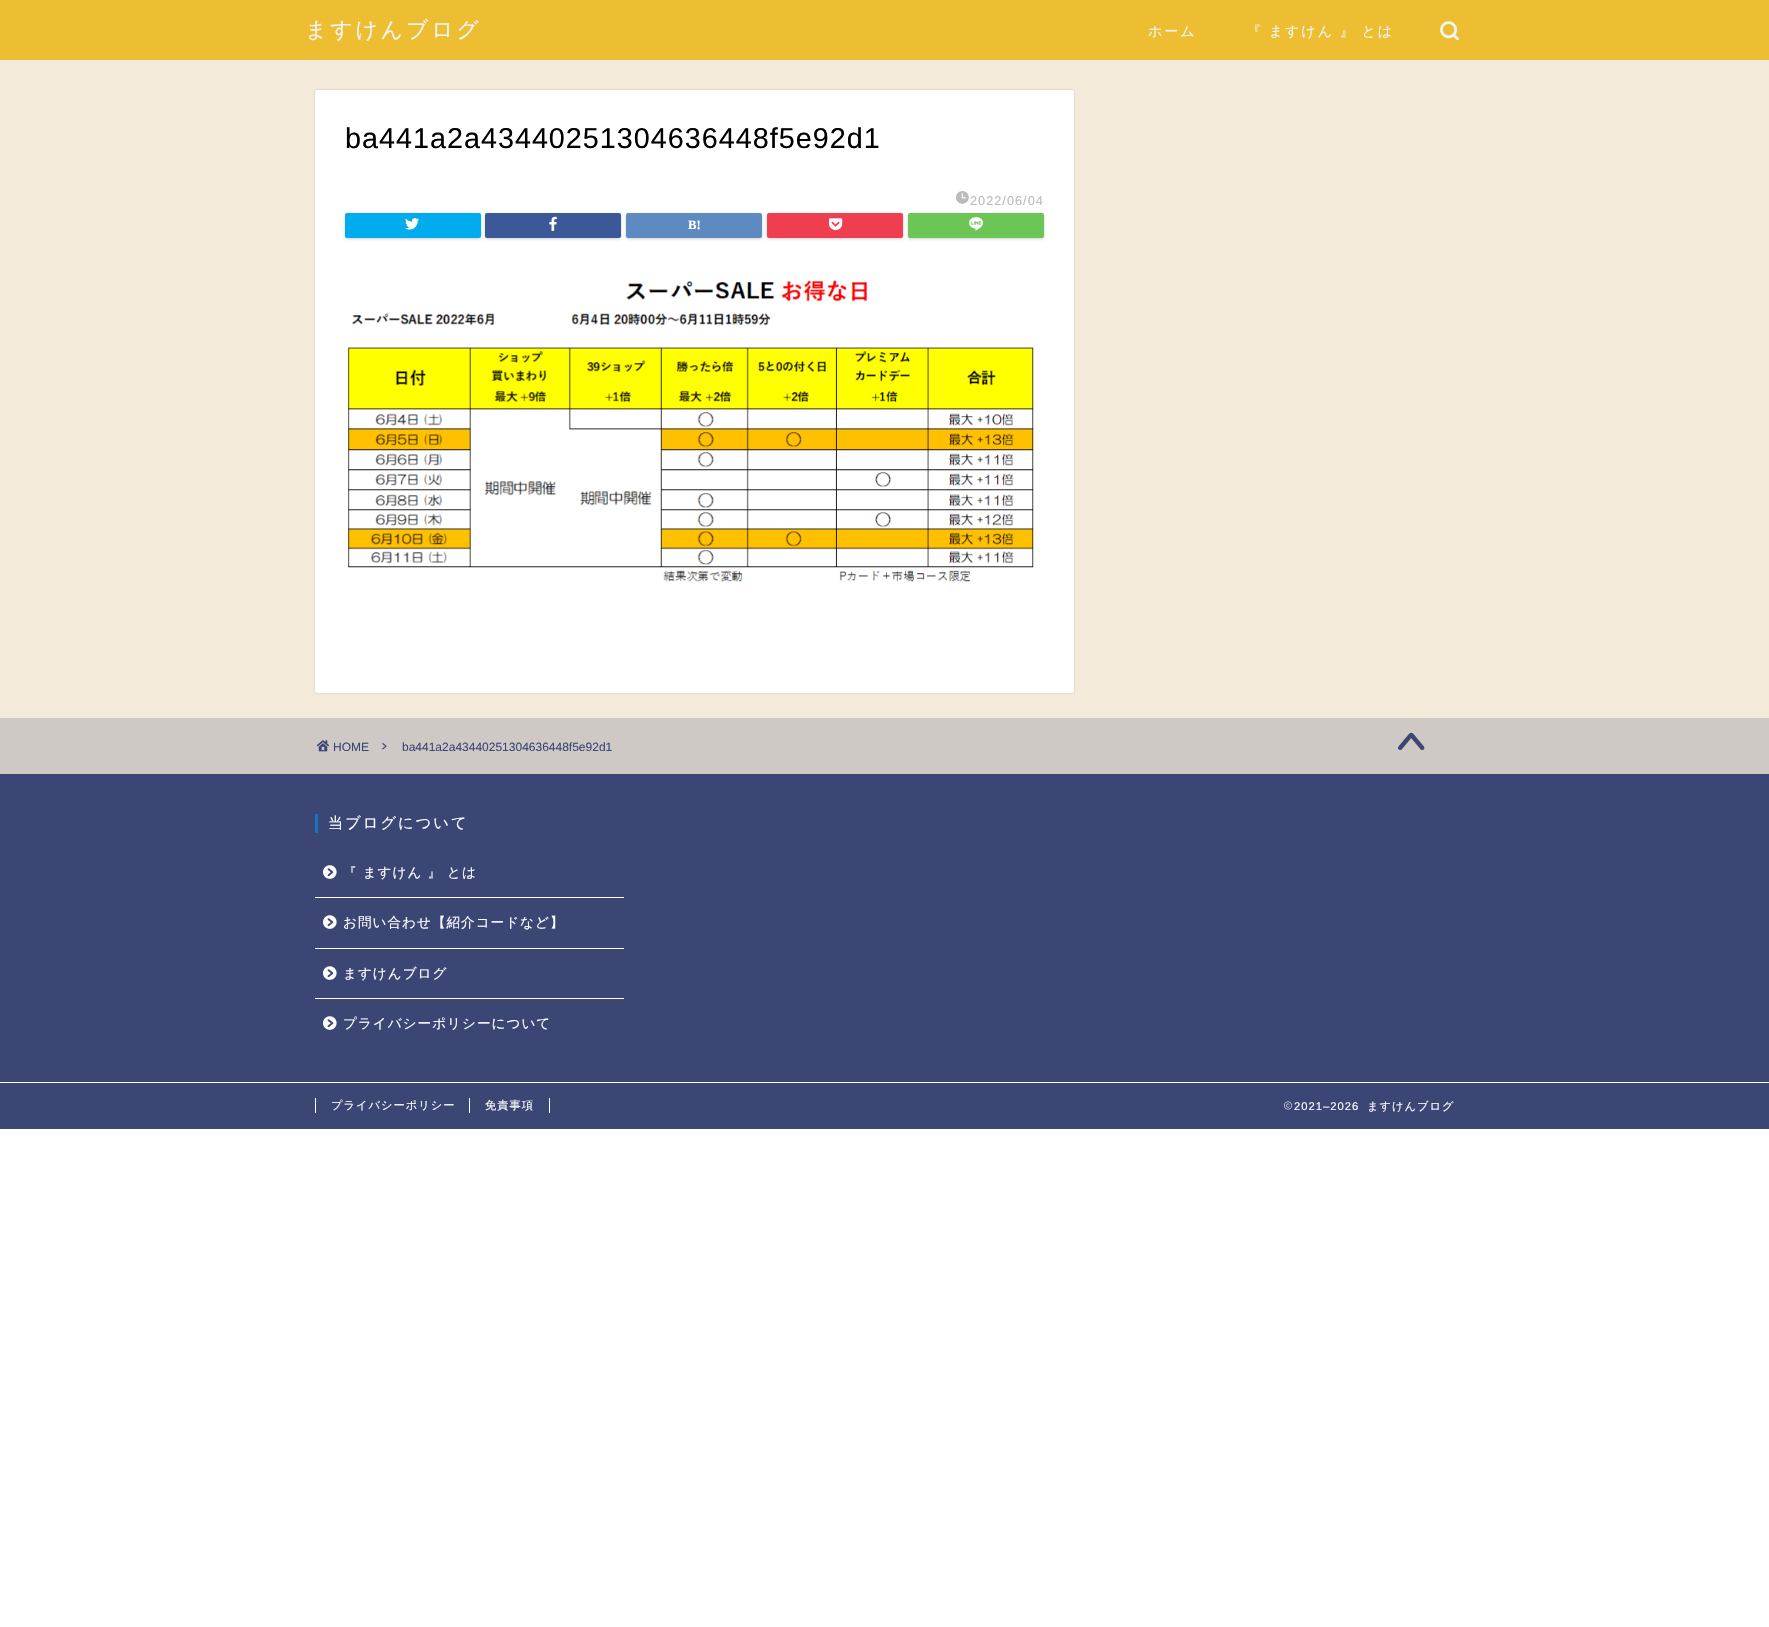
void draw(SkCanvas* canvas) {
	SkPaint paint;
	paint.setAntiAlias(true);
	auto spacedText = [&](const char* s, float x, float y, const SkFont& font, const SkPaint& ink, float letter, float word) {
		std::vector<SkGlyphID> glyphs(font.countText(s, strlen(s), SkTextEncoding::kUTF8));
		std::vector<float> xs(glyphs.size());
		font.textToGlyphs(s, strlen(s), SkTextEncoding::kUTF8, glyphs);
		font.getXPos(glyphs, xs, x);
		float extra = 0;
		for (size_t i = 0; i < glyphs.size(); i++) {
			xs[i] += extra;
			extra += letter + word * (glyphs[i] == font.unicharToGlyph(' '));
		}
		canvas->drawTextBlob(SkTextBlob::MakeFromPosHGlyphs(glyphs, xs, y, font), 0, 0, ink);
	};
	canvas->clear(0xffffffff);
	paint.setColor(0xfff4ead9);
	canvas->drawRect(SkRect::MakeXYWH(0, 60, 1769, 658), paint);
	paint.setColor(0xffedbe31);
	canvas->drawRect(SkRect::MakeXYWH(0, 0, 1769, 60), paint);
	SkFont f1(fontMgr->matchFamilyStyle("WenQuanYi Zen Hei", SkFontStyle(500, SkFontStyle::kNormal_Width, SkFontStyle::kUpright_Slant)), 21.75);
	f1.setSubpixel(true);
	paint.setColor(0xfff4f4f4);
	spacedText("ますけんブログ", 305, 37, f1, paint, 3, 0);
	SkFont f2(fontMgr->matchFamilyStyle("WenQuanYi Zen Hei", SkFontStyle(500, SkFontStyle::kNormal_Width, SkFontStyle::kUpright_Slant)), 14);
	f2.setSubpixel(true);
	spacedText("ホーム", 1148, 36, f2, paint, 2, 0);
	spacedText("『 ますけん 』 とは", 1247, 36, f2, paint, 2, -0.5);
	canvas->drawImageRect(SkImages::DeferredFromEncodedData(SkData::MakeFromFileName("img1.png")), SkRect::MakeXYWH(1440, 21, 19, 20), SkSamplingOptions());
	paint.setColor(0x2e000000);
	paint.setMaskFilter(SkMaskFilter::MakeBlur(kNormal_SkBlurStyle, 1));
	canvas->drawRoundRect(SkRect::MakeXYWH(315, 90, 759, 603), 2, 2, paint);
	paint.setMaskFilter(nullptr);
	paint.setColor(0xffffffff);
	canvas->drawRoundRect(SkRect::MakeXYWH(315, 90, 759, 603), 2, 2, paint);
	SkFont f3(fontMgr->matchFamilyStyle("Liberation Sans", SkFontStyle::Normal()), 28.75);
	f3.setSubpixel(true);
	paint.setColor(0xff000000);
	spacedText("ba441a2a43440251304636448f5e92d1", 345, 148, f3, paint, 1, 0);
	canvas->drawImageRect(SkImages::DeferredFromEncodedData(SkData::MakeFromFileName("img2.png")), SkRect::MakeXYWH(956, 191, 13, 13), SkSamplingOptions());
	SkFont f4(fontMgr->matchFamilyStyle("Liberation Sans", SkFontStyle::Normal()), 12.75);
	f4.setSubpixel(true);
	paint.setColor(0xffbbbbbb);
	spacedText("2022/06/04", 970, 205, f4, paint, 1, 0);
	paint.setColor(0x2e000000);
	paint.setMaskFilter(SkMaskFilter::MakeBlur(kNormal_SkBlurStyle, 1.5));
	canvas->drawRoundRect(SkRect::MakeXYWH(345, 214, 136, 25), 2, 2, paint);
	paint.setMaskFilter(nullptr);
	paint.setColor(0xff00acee);
	canvas->drawRoundRect(SkRect::MakeXYWH(346, 214, 134, 23), 1, 1, paint);
	paint.setStroke(true);
	paint.setStrokeWidth(2);
	canvas->drawRoundRect(SkRect::MakeXYWH(346, 214, 134, 23), 1, 1, paint);
	canvas->drawImageRect(SkImages::DeferredFromEncodedData(SkData::MakeFromFileName("img3.png")), SkRect::MakeXYWH(405, 218, 14, 12), SkSamplingOptions());
	paint.setStroke(false);
	paint.setColor(0x2e000000);
	paint.setMaskFilter(SkMaskFilter::MakeBlur(kNormal_SkBlurStyle, 1.5));
	canvas->drawRoundRect(SkRect::MakeXYWH(485, 214, 136, 25), 2, 2, paint);
	paint.setMaskFilter(nullptr);
	paint.setColor(0xff3b5998);
	canvas->drawRoundRect(SkRect::MakeXYWH(486, 214, 134, 23), 1, 1, paint);
	paint.setStroke(true);
	canvas->drawRoundRect(SkRect::MakeXYWH(486, 214, 134, 23), 1, 1, paint);
	canvas->drawImageRect(SkImages::DeferredFromEncodedData(SkData::MakeFromFileName("img4.png")), SkRect::MakeXYWH(549, 216, 8, 15), SkSamplingOptions());
	paint.setStroke(false);
	paint.setColor(0x2e000000);
	paint.setMaskFilter(SkMaskFilter::MakeBlur(kNormal_SkBlurStyle, 1.5));
	canvas->drawRoundRect(SkRect::MakeXYWH(626, 214, 136, 25), 2, 2, paint);
	paint.setMaskFilter(nullptr);
	paint.setColor(0xff5d8ac1);
	canvas->drawRoundRect(SkRect::MakeXYWH(627, 214, 134, 23), 1, 1, paint);
	paint.setStroke(true);
	canvas->drawRoundRect(SkRect::MakeXYWH(627, 214, 134, 23), 1, 1, paint);
	SkFont f5(fontMgr->matchFamilyStyle("Liberation Serif", SkFontStyle::Bold()), 12.75);
	f5.setSubpixel(true);
	paint.setStroke(false);
	paint.setColor(0xffffffff);
	canvas->drawString("B!", 688, 229, f5, paint);
	paint.setColor(0x2e000000);
	paint.setMaskFilter(SkMaskFilter::MakeBlur(kNormal_SkBlurStyle, 1.5));
	canvas->drawRoundRect(SkRect::MakeXYWH(767, 214, 136, 25), 2, 2, paint);
	paint.setMaskFilter(nullptr);
	paint.setColor(0xfff03e51);
	canvas->drawRoundRect(SkRect::MakeXYWH(768, 214, 134, 23), 1, 1, paint);
	paint.setStroke(true);
	canvas->drawRoundRect(SkRect::MakeXYWH(768, 214, 134, 23), 1, 1, paint);
	canvas->drawImageRect(SkImages::DeferredFromEncodedData(SkData::MakeFromFileName("img5.png")), SkRect::MakeXYWH(829, 218, 14, 13), SkSamplingOptions());
	paint.setStroke(false);
	paint.setColor(0x2e000000);
	paint.setMaskFilter(SkMaskFilter::MakeBlur(kNormal_SkBlurStyle, 1.5));
	canvas->drawRoundRect(SkRect::MakeXYWH(908, 214, 136, 25), 2, 2, paint);
	paint.setMaskFilter(nullptr);
	paint.setColor(0xff6cc655);
	canvas->drawRoundRect(SkRect::MakeXYWH(909, 214, 134, 23), 1, 1, paint);
	paint.setStroke(true);
	canvas->drawRoundRect(SkRect::MakeXYWH(909, 214, 134, 23), 1, 1, paint);
	canvas->drawImageRect(SkImages::DeferredFromEncodedData(SkData::MakeFromFileName("img6.png")), SkRect::MakeXYWH(969, 217, 15, 14), SkSamplingOptions());
	canvas->drawImageRect(SkImages::DeferredFromEncodedData(SkData::MakeFromFileName("img7.png")), SkRect::MakeXYWH(348, 280, 686, 302), SkSamplingOptions());
	paint.setStroke(false);
	paint.setColor(0xffcfc9c5);
	canvas->drawRect(SkRect::MakeXYWH(0, 718, 1769, 56), paint);
	canvas->drawImageRect(SkImages::DeferredFromEncodedData(SkData::MakeFromFileName("img8.png")), SkRect::MakeXYWH(317, 740, 12, 12), SkSamplingOptions());
	SkFont f6(fontMgr->matchFamilyStyle("Liberation Sans", SkFontStyle::Normal()), 12);
	f6.setSubpixel(true);
	paint.setColor(0xff3b4675);
	canvas->drawString("HOME", 333, 751, f6, paint);
	canvas->drawImageRect(SkImages::DeferredFromEncodedData(SkData::MakeFromFileName("img9.png")), SkRect::MakeXYWH(382, 743, 5, 7), SkSamplingOptions());
	canvas->drawString("ba441a2a43440251304636448f5e92d1", 402, 751, f6, paint);
	canvas->drawImageRect(SkImages::DeferredFromEncodedData(SkData::MakeFromFileName("img10.png")), SkRect::MakeXYWH(1398, 732, 27, 18), SkSamplingOptions());
	canvas->drawRect(SkRect::MakeXYWH(0, 774, 1769, 355), paint);
	paint.setColor(0xffffffff);
	canvas->drawRect(SkRect::MakeXYWH(0, 1082, 1769, 1), paint);
	paint.setColor(0xff1e73be);
	canvas->drawRect(SkRect::MakeXYWH(315, 814, 3, 19), paint);
	SkFont f7(fontMgr->matchFamilyStyle("WenQuanYi Zen Hei", SkFontStyle(500, SkFontStyle::kNormal_Width, SkFontStyle::kUpright_Slant)), 15.25);
	f7.setSubpixel(true);
	paint.setColor(0xffffffff);
	spacedText("当ブログについて", 328, 828, f7, paint, 2, 0);
	canvas->drawRect(SkRect::MakeXYWH(315, 897, 309, 1), paint);
	canvas->drawImageRect(SkImages::DeferredFromEncodedData(SkData::MakeFromFileName("img11.png")), SkRect::MakeXYWH(323, 865, 14, 14), SkSamplingOptions());
	SkFont f8(fontMgr->matchFamilyStyle("WenQuanYi Zen Hei", SkFontStyle(500, SkFontStyle::kNormal_Width, SkFontStyle::kUpright_Slant)), 13.6);
	f8.setSubpixel(true);
	spacedText("『 ますけん 』 とは", 343, 877, f8, paint, 1, 0);
	canvas->drawRect(SkRect::MakeXYWH(315, 948, 309, 1), paint);
	canvas->drawImageRect(SkImages::DeferredFromEncodedData(SkData::MakeFromFileName("img11.png")), SkRect::MakeXYWH(323, 915, 14, 14), SkSamplingOptions());
	spacedText("お問い合わせ【紹介コードなど】", 343, 927, f8, paint, 1, 0);
	canvas->drawRect(SkRect::MakeXYWH(315, 998, 309, 1), paint);
	canvas->drawImageRect(SkImages::DeferredFromEncodedData(SkData::MakeFromFileName("img11.png")), SkRect::MakeXYWH(323, 966, 14, 14), SkSamplingOptions());
	spacedText("ますけんブログ", 343, 978, f8, paint, 1, 0);
	canvas->drawImageRect(SkImages::DeferredFromEncodedData(SkData::MakeFromFileName("img11.png")), SkRect::MakeXYWH(323, 1016, 14, 14), SkSamplingOptions());
	spacedText("プライバシーポリシーについて", 343, 1028, f8, paint, 1, 0);
	canvas->drawRect(SkRect::MakeXYWH(469, 1098, 1, 15), paint);
	canvas->drawRect(SkRect::MakeXYWH(315, 1098, 1, 15), paint);
	SkFont f9(fontMgr->matchFamilyStyle("WenQuanYi Zen Hei", SkFontStyle(500, SkFontStyle::kNormal_Width, SkFontStyle::kUpright_Slant)), 11.25);
	f9.setSubpixel(true);
	spacedText("プライバシーポリシー", 331, 1109, f9, paint, 1, 0);
	canvas->drawRect(SkRect::MakeXYWH(549, 1098, 1, 15), paint);
	spacedText("免責事項", 485, 1109, f9, paint, 1, 0);
	canvas->drawImageRect(SkImages::DeferredFromEncodedData(SkData::MakeFromFileName("img12.png")), SkRect::MakeXYWH(1284, 1101, 8, 9), SkSamplingOptions());
	SkFont f10(fontMgr->matchFamilyStyle("Liberation Sans", SkFontStyle::Normal()), 11.25);
	f10.setSubpixel(true);
	spacedText("2021–2026", 1294, 1110, f10, paint, 1, 0);
	spacedText("ますけんブログ", 1367, 1110, f9, paint, 1, 0);
}
